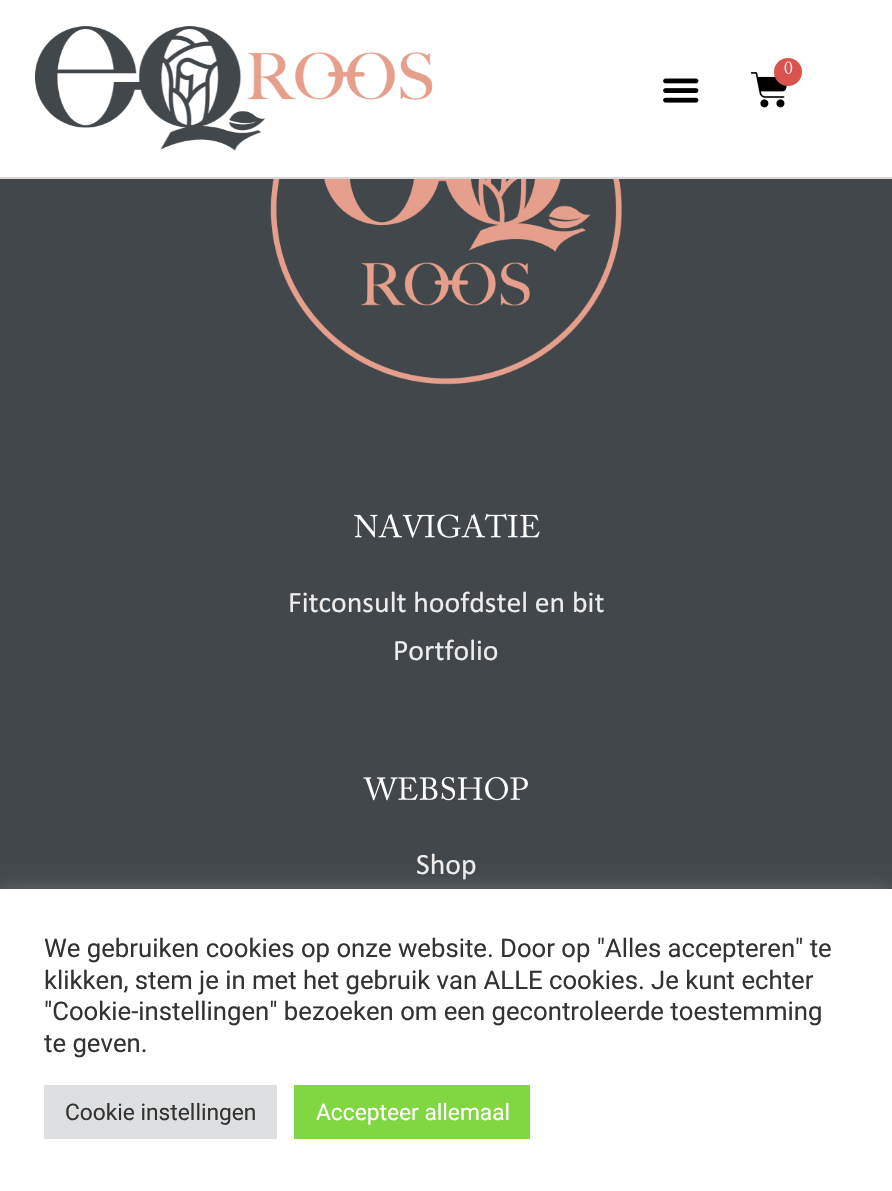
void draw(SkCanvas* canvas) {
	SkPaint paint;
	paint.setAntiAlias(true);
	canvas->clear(0xff41474b);
	paint.setColor(0xffffffff);
	canvas->drawRect(SkRect::MakeXYWH(0, 0, 892, 177), paint);
	paint.setColor(0xffd8d8d8);
	canvas->drawRect(SkRect::MakeXYWH(0, 177, 892, 2), paint);
	canvas->drawImageRect(SkImages::DeferredFromEncodedData(SkData::MakeFromFileName("img1.png")), SkRect::MakeXYWH(35, 26, 398, 125), SkSamplingOptions());
	canvas->drawImageRect(SkImages::DeferredFromEncodedData(SkData::MakeFromFileName("img2.png")), SkRect::MakeXYWH(663, 78, 36, 25), SkSamplingOptions());
	canvas->drawImageRect(SkImages::DeferredFromEncodedData(SkData::MakeFromFileName("img3.png")), SkRect::MakeXYWH(750, 72, 37, 36), SkSamplingOptions());
	paint.setColor(0xffd9534f);
	canvas->drawCircle(788, 72, 14, paint);
	canvas->drawImageRect(SkImages::DeferredFromEncodedData(SkData::MakeFromFileName("img4.png")), SkRect::MakeXYWH(784, 61, 9, 13), SkSamplingOptions());
	canvas->drawImageRect(SkImages::DeferredFromEncodedData(SkData::MakeFromFileName("img5.png")), SkRect::MakeXYWH(270, 179, 352, 206), SkSamplingOptions());
	canvas->drawImageRect(SkImages::DeferredFromEncodedData(SkData::MakeFromFileName("img6.png")), SkRect::MakeXYWH(354, 513, 186, 25), SkSamplingOptions());
	SkFont f1(fontMgr->matchFamilyStyle("Calibri", SkFontStyle::Normal()), 29.75);
	f1.setSubpixel(true);
	paint.setColor(0xffededed);
	canvas->drawString("Fitconsult hoofdstel en bit", 288, 612, f1, paint);
	canvas->drawString("Portfolio", 393, 660, f1, paint);
	canvas->drawImageRect(SkImages::DeferredFromEncodedData(SkData::MakeFromFileName("img7.png")), SkRect::MakeXYWH(363, 777, 165, 24), SkSamplingOptions());
	canvas->drawString("Shop", 416, 874, f1, paint);
	paint.setColor(0x4dacabab);
	paint.setMaskFilter(SkMaskFilter::MakeBlur(kNormal_SkBlurStyle, 9));
	canvas->drawRect(SkRect::MakeXYWH(0, 887, 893, 303), paint);
	paint.setMaskFilter(nullptr);
	paint.setColor(0xffffffff);
	canvas->drawRect(SkRect::MakeXYWH(0, 889, 892, 302), paint);
	SkFont f2(fontMgr->matchFamilyStyle("Roboto", SkFontStyle::Normal()), 25.7);
	f2.setSubpixel(true);
	paint.setColor(0xff333333);
	canvas->drawString("We gebruiken cookies op onze website. Door op \"Alles accepteren\" te", 44, 957, f2, paint);
	canvas->drawString("klikken, stem je in met het gebruik van ALLE cookies. Je kunt echter", 44, 989, f2, paint);
	canvas->drawString("\"Cookie-instellingen\" bezoeken om een gecontroleerde toestemming", 44, 1020, f2, paint);
	canvas->drawString("te geven.", 44, 1052, f2, paint);
	paint.setColor(0xffdedfe0);
	canvas->drawRect(SkRect::MakeXYWH(44, 1085, 233, 54), paint);
	SkFont f3(fontMgr->matchFamilyStyle("Roboto", SkFontStyle::Normal()), 22.75);
	f3.setSubpixel(true);
	paint.setColor(0xff333333);
	canvas->drawString("Cookie instellingen", 65, 1120, f3, paint);
	paint.setColor(0xff81d742);
	canvas->drawRect(SkRect::MakeXYWH(294, 1085, 236, 54), paint);
	paint.setColor(0xffffffff);
	canvas->drawString("Accepteer allemaal", 316, 1120, f3, paint);
}
